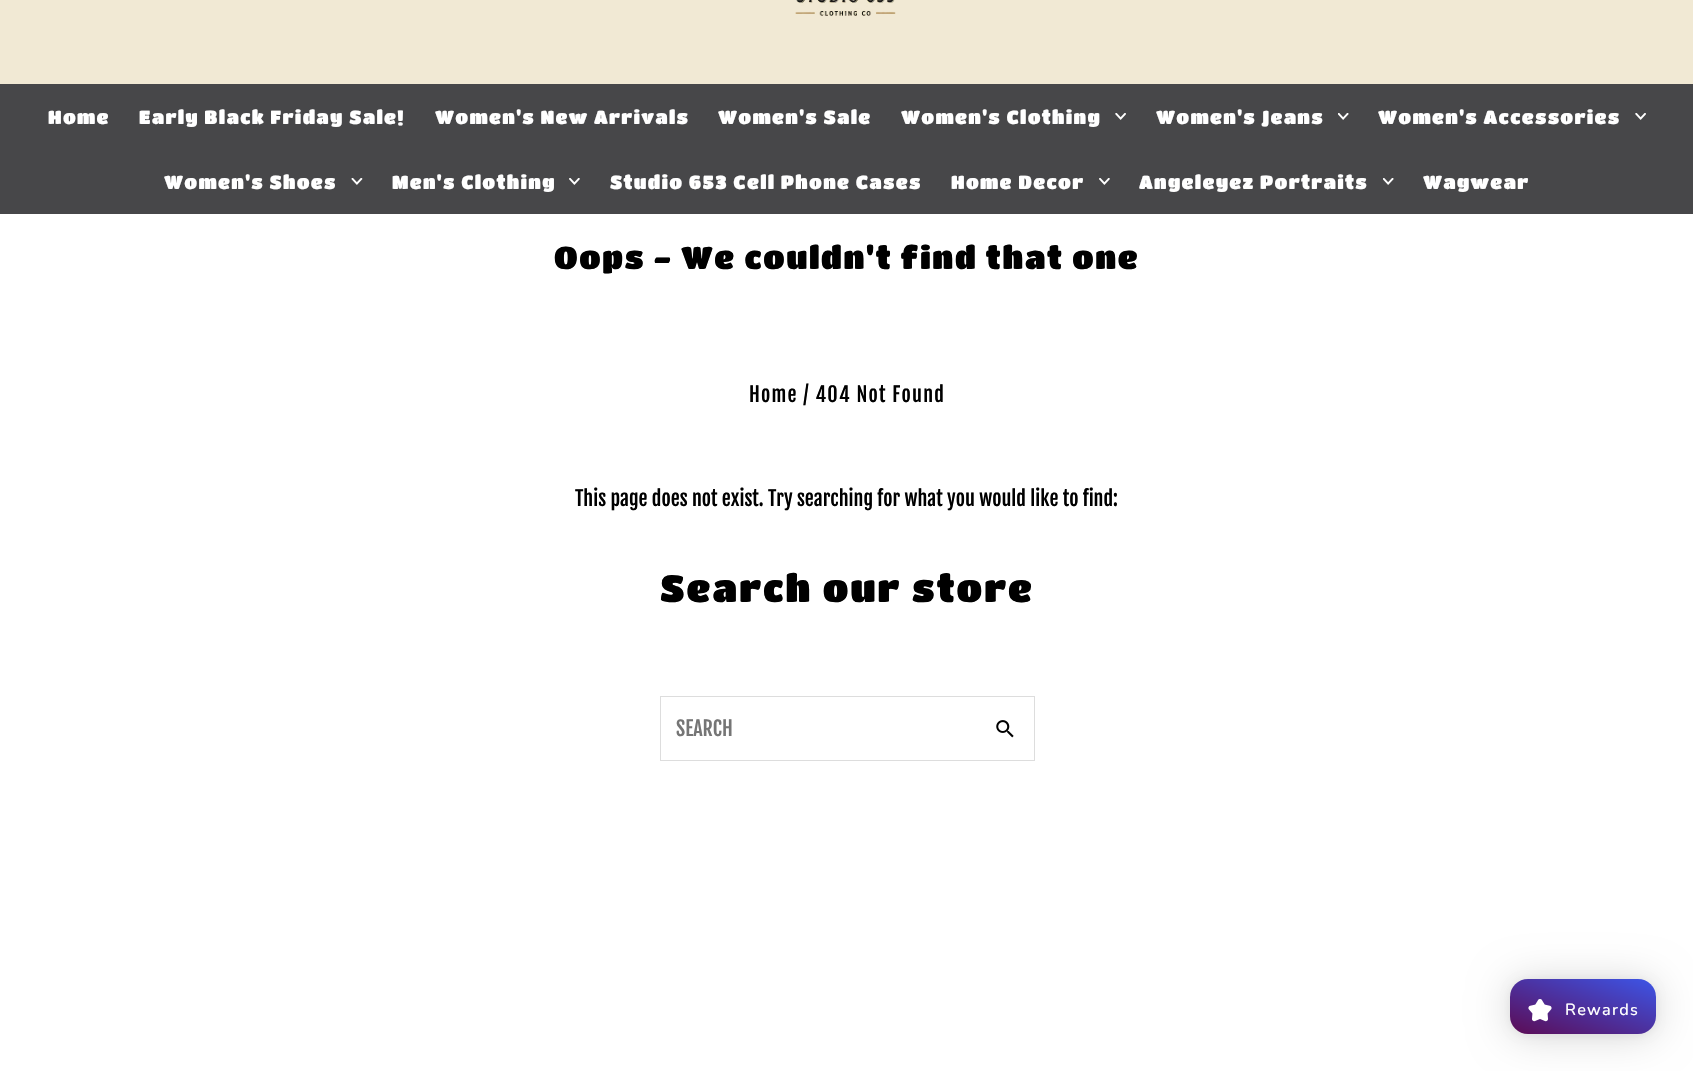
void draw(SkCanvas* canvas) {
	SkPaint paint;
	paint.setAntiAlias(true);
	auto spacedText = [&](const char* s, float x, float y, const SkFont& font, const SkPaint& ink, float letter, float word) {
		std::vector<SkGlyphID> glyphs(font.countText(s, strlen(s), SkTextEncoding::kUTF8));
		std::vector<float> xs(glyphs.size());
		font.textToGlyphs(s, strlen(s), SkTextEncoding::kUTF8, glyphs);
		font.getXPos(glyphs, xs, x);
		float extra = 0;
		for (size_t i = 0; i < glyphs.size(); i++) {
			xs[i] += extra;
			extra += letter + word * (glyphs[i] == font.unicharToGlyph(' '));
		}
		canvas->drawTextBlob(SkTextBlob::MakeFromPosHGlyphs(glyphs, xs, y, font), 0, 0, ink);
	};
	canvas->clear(0xffffffff);
	paint.setColor(0xfff1e9d4);
	canvas->drawRect(SkRect::MakeXYWH(0, 0, 1693, 84), paint);
	canvas->drawImageRect(SkImages::DeferredFromEncodedData(SkData::MakeFromFileName("img1.png")), SkRect::MakeXYWH(795, 0, 101, 16), SkSamplingOptions());
	paint.setColor(0xff474749);
	canvas->drawRect(SkRect::MakeXYWH(0, 84, 1693, 130), paint);
	SkFont f1(fontMgr->matchFamilyStyle("Titan One", SkFontStyle::Normal()), 18.75);
	f1.setSubpixel(true);
	paint.setColor(0xffffffff);
	spacedText("Home", 48, 124, f1, paint, 1.25, 0);
	spacedText("Early Black Friday Sale!", 139, 124, f1, paint, 1.25, 0);
	spacedText("Women's New Arrivals", 435, 124, f1, paint, 1.25, 0);
	spacedText("Women's Sale", 718, 124, f1, paint, 1.25, 0);
	spacedText("Women's Clothing", 901, 124, f1, paint, 1.25, 0);
	canvas->drawImageRect(SkImages::DeferredFromEncodedData(SkData::MakeFromFileName("img2.png")), SkRect::MakeXYWH(1115, 113, 11, 7), SkSamplingOptions());
	spacedText("Women's Jeans", 1156, 124, f1, paint, 1.25, 0);
	canvas->drawImageRect(SkImages::DeferredFromEncodedData(SkData::MakeFromFileName("img3.png")), SkRect::MakeXYWH(1338, 113, 11, 7), SkSamplingOptions());
	spacedText("Women's Accessories", 1378, 124, f1, paint, 1.25, 0);
	canvas->drawImageRect(SkImages::DeferredFromEncodedData(SkData::MakeFromFileName("img2.png")), SkRect::MakeXYWH(1635, 113, 11, 7), SkSamplingOptions());
	spacedText("Women's Shoes", 164, 189, f1, paint, 1.25, 0);
	canvas->drawImageRect(SkImages::DeferredFromEncodedData(SkData::MakeFromFileName("img4.png")), SkRect::MakeXYWH(351, 178, 12, 7), SkSamplingOptions());
	spacedText("Men's Clothing", 392, 189, f1, paint, 1.25, 0);
	canvas->drawImageRect(SkImages::DeferredFromEncodedData(SkData::MakeFromFileName("img5.png")), SkRect::MakeXYWH(569, 178, 11, 7), SkSamplingOptions());
	spacedText("Studio 653 Cell Phone Cases", 610, 189, f1, paint, 1.25, 0);
	spacedText("Home Decor", 951, 189, f1, paint, 1.25, 0);
	canvas->drawImageRect(SkImages::DeferredFromEncodedData(SkData::MakeFromFileName("img5.png")), SkRect::MakeXYWH(1099, 178, 11, 7), SkSamplingOptions());
	spacedText("Angeleyez Portraits", 1139, 189, f1, paint, 1.25, 0);
	canvas->drawImageRect(SkImages::DeferredFromEncodedData(SkData::MakeFromFileName("img3.png")), SkRect::MakeXYWH(1383, 178, 11, 7), SkSamplingOptions());
	spacedText("Wagwear", 1423, 189, f1, paint, 1.25, 0);
	SkFont f2(fontMgr->matchFamilyStyle("Titan One", SkFontStyle::Normal()), 31.25);
	f2.setSubpixel(true);
	paint.setColor(0xff000000);
	spacedText("Oops - We couldn't find that one", 554, 269, f2, paint, 1.55, 0);
	SkFont f3(fontMgr->matchFamilyStyle("Fjalla One", SkFontStyle::Normal()), 20);
	f3.setSubpixel(true);
	spacedText("Home / 404 Not Found", 749, 402, f3, paint, 1.25, 0);
	canvas->drawString("This page does not exist. Try searching for what you would like to find:", 575, 506, f3, paint);
	SkFont f4(fontMgr->matchFamilyStyle("Titan One", SkFontStyle::Normal()), 37.5);
	f4.setSubpixel(true);
	spacedText("Search our store", 660, 602, f4, paint, 1.9, 0);
	paint.setStroke(true);
	paint.setStrokeWidth(1);
	paint.setColor(0xffdddddd);
	canvas->drawRect(SkRect::MakeXYWH(660.5, 696.5, 374, 64), paint);
	paint.setStroke(false);
	paint.setColor(0xff757575);
	canvas->drawString("SEARCH", 676, 736, f3, paint);
	canvas->drawImageRect(SkImages::DeferredFromEncodedData(SkData::MakeFromFileName("img6.png")), SkRect::MakeXYWH(996, 720, 18, 18), SkSamplingOptions());
	paint.setColor(0x29000000);
	paint.setMaskFilter(SkMaskFilter::MakeBlur(kNormal_SkBlurStyle, 20));
	canvas->drawRoundRect(SkRect::MakeXYWH(1510, 981, 146, 55), 18, 18, paint);
	paint.setMaskFilter(nullptr);
	paint.setColor(0x0f000000);
	paint.setMaskFilter(SkMaskFilter::MakeBlur(kNormal_SkBlurStyle, 4));
	canvas->drawRoundRect(SkRect::MakeXYWH(1510, 980, 146, 55), 18, 18, paint);
	paint.setMaskFilter(nullptr);
	{
		const SkColor colors[] = {0xff3c56e9, 0xff5c0c55};
		const float stops[] = {0, 1};
		const SkPoint ends[] = {{1601, 958}, {1566, 1054}};
		paint.setShader(SkGradientShader::MakeLinear(ends, colors, stops, 2, SkTileMode::kClamp));
		paint.setAlpha(255);
	}
	canvas->drawRoundRect(SkRect::MakeXYWH(1510, 979, 146, 55), 18, 18, paint);
	canvas->drawImageRect(SkImages::DeferredFromEncodedData(SkData::MakeFromFileName("img7.png")), SkRect::MakeXYWH(1528, 999, 24, 23), SkSamplingOptions());
	SkFont f5(fontMgr->matchFamilyStyle("Nunito", SkFontStyle(500, SkFontStyle::kNormal_Width, SkFontStyle::kUpright_Slant)), 16.25);
	f5.setSubpixel(true);
	paint.setShader(nullptr);
	paint.setColor(0xffffffff);
	spacedText("Rewards", 1565, 1015, f5, paint, 1.25, 0);
}
